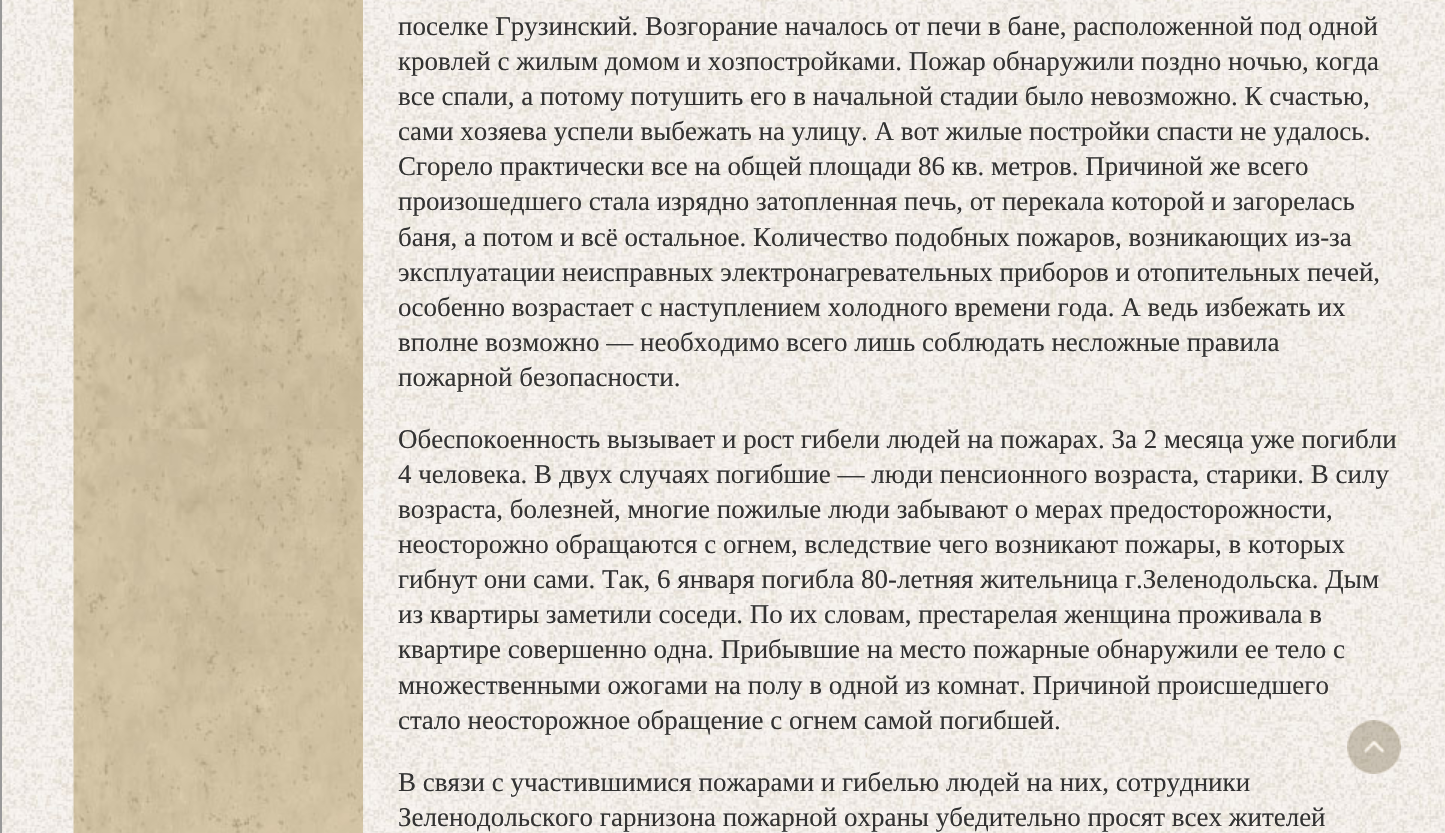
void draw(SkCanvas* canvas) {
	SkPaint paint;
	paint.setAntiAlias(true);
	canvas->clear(0xffffffff);
	canvas->drawImageRect(SkImages::DeferredFromEncodedData(SkData::MakeFromFileName("img1.png")), SkRect::MakeXYWH(2, 0, 1443, 833), SkSamplingOptions());
	paint.setColor(0xff999999);
	canvas->drawRect(SkRect::MakeXYWH(0, 0, 2, 833), paint);
	canvas->drawImageRect(SkImages::DeferredFromEncodedData(SkData::MakeFromFileName("img2.png")), SkRect::MakeXYWH(73, 0, 290, 833), SkSamplingOptions());
	SkFont f1(fontMgr->matchFamilyStyle("Liberation Serif", SkFontStyle::Normal()), 27);
	f1.setSubpixel(true);
	paint.setColor(0xff333333);
	canvas->drawString("поселке Грузинский. Возгорание началось от печи в бане, расположенной под одной", 398, 35, f1, paint);
	canvas->drawString("кровлей с жилым домом и хозпостройками. Пожар обнаружили поздно ночью, когда", 398, 70, f1, paint);
	canvas->drawString("все спали, а потому потушить его в начальной стадии было невозможно. К счастью,", 398, 105, f1, paint);
	canvas->drawString("сами хозяева успели выбежать на улицу. А вот жилые постройки спасти не удалось.", 398, 140, f1, paint);
	canvas->drawString("Сгорело практически все на общей площади 86 кв. метров. Причиной же всего", 398, 175, f1, paint);
	canvas->drawString("произошедшего стала изрядно затопленная печь, от перекала которой и загорелась", 398, 210, f1, paint);
	canvas->drawString("баня, а потом и всё остальное. Количество подобных пожаров, возникающих из-за", 398, 246, f1, paint);
	canvas->drawString("эксплуатации неисправных электронагревательных приборов и отопительных печей,", 398, 281, f1, paint);
	canvas->drawString("особенно возрастает с наступлением холодного времени года. А ведь избежать их", 398, 316, f1, paint);
	canvas->drawString("вполне возможно — необходимо всего лишь соблюдать несложные правила", 398, 351, f1, paint);
	canvas->drawString("пожарной безопасности.", 398, 386, f1, paint);
	canvas->drawString("Обеспокоенность вызывает и рост гибели людей на пожарах. За 2 месяца уже погибли", 398, 448, f1, paint);
	canvas->drawString("4 человека. В двух случаях погибшие — люди пенсионного возраста, старики. В силу", 398, 483, f1, paint);
	canvas->drawString("возраста, болезней, многие пожилые люди забывают о мерах предосторожности,", 398, 518, f1, paint);
	canvas->drawString("неосторожно обращаются с огнем, вследствие чего возникают пожары, в которых", 398, 553, f1, paint);
	canvas->drawString("гибнут они сами. Так, 6 января погибла 80-летняя жительница г.Зеленодольска. Дым", 398, 588, f1, paint);
	canvas->drawString("из квартиры заметили соседи. По их словам, престарелая женщина проживала в", 398, 623, f1, paint);
	canvas->drawString("квартире совершенно одна. Прибывшие на место пожарные обнаружили ее тело с", 398, 658, f1, paint);
	canvas->drawString("множественными ожогами на полу в одной из комнат. Причиной происшедшего", 398, 694, f1, paint);
	canvas->drawString("стало неосторожное обращение с огнем самой погибшей.", 398, 729, f1, paint);
	canvas->drawString("В связи с участившимися пожарами и гибелью людей на них, сотрудники", 398, 791, f1, paint);
	canvas->drawString("Зеленодольского гарнизона пожарной охраны убедительно просят всех жителей", 398, 826, f1, paint);
	canvas->drawImageRect(SkImages::DeferredFromEncodedData(SkData::MakeFromFileName("img3.png")), SkRect::MakeXYWH(1347, 720, 54, 54), SkSamplingOptions());
}
